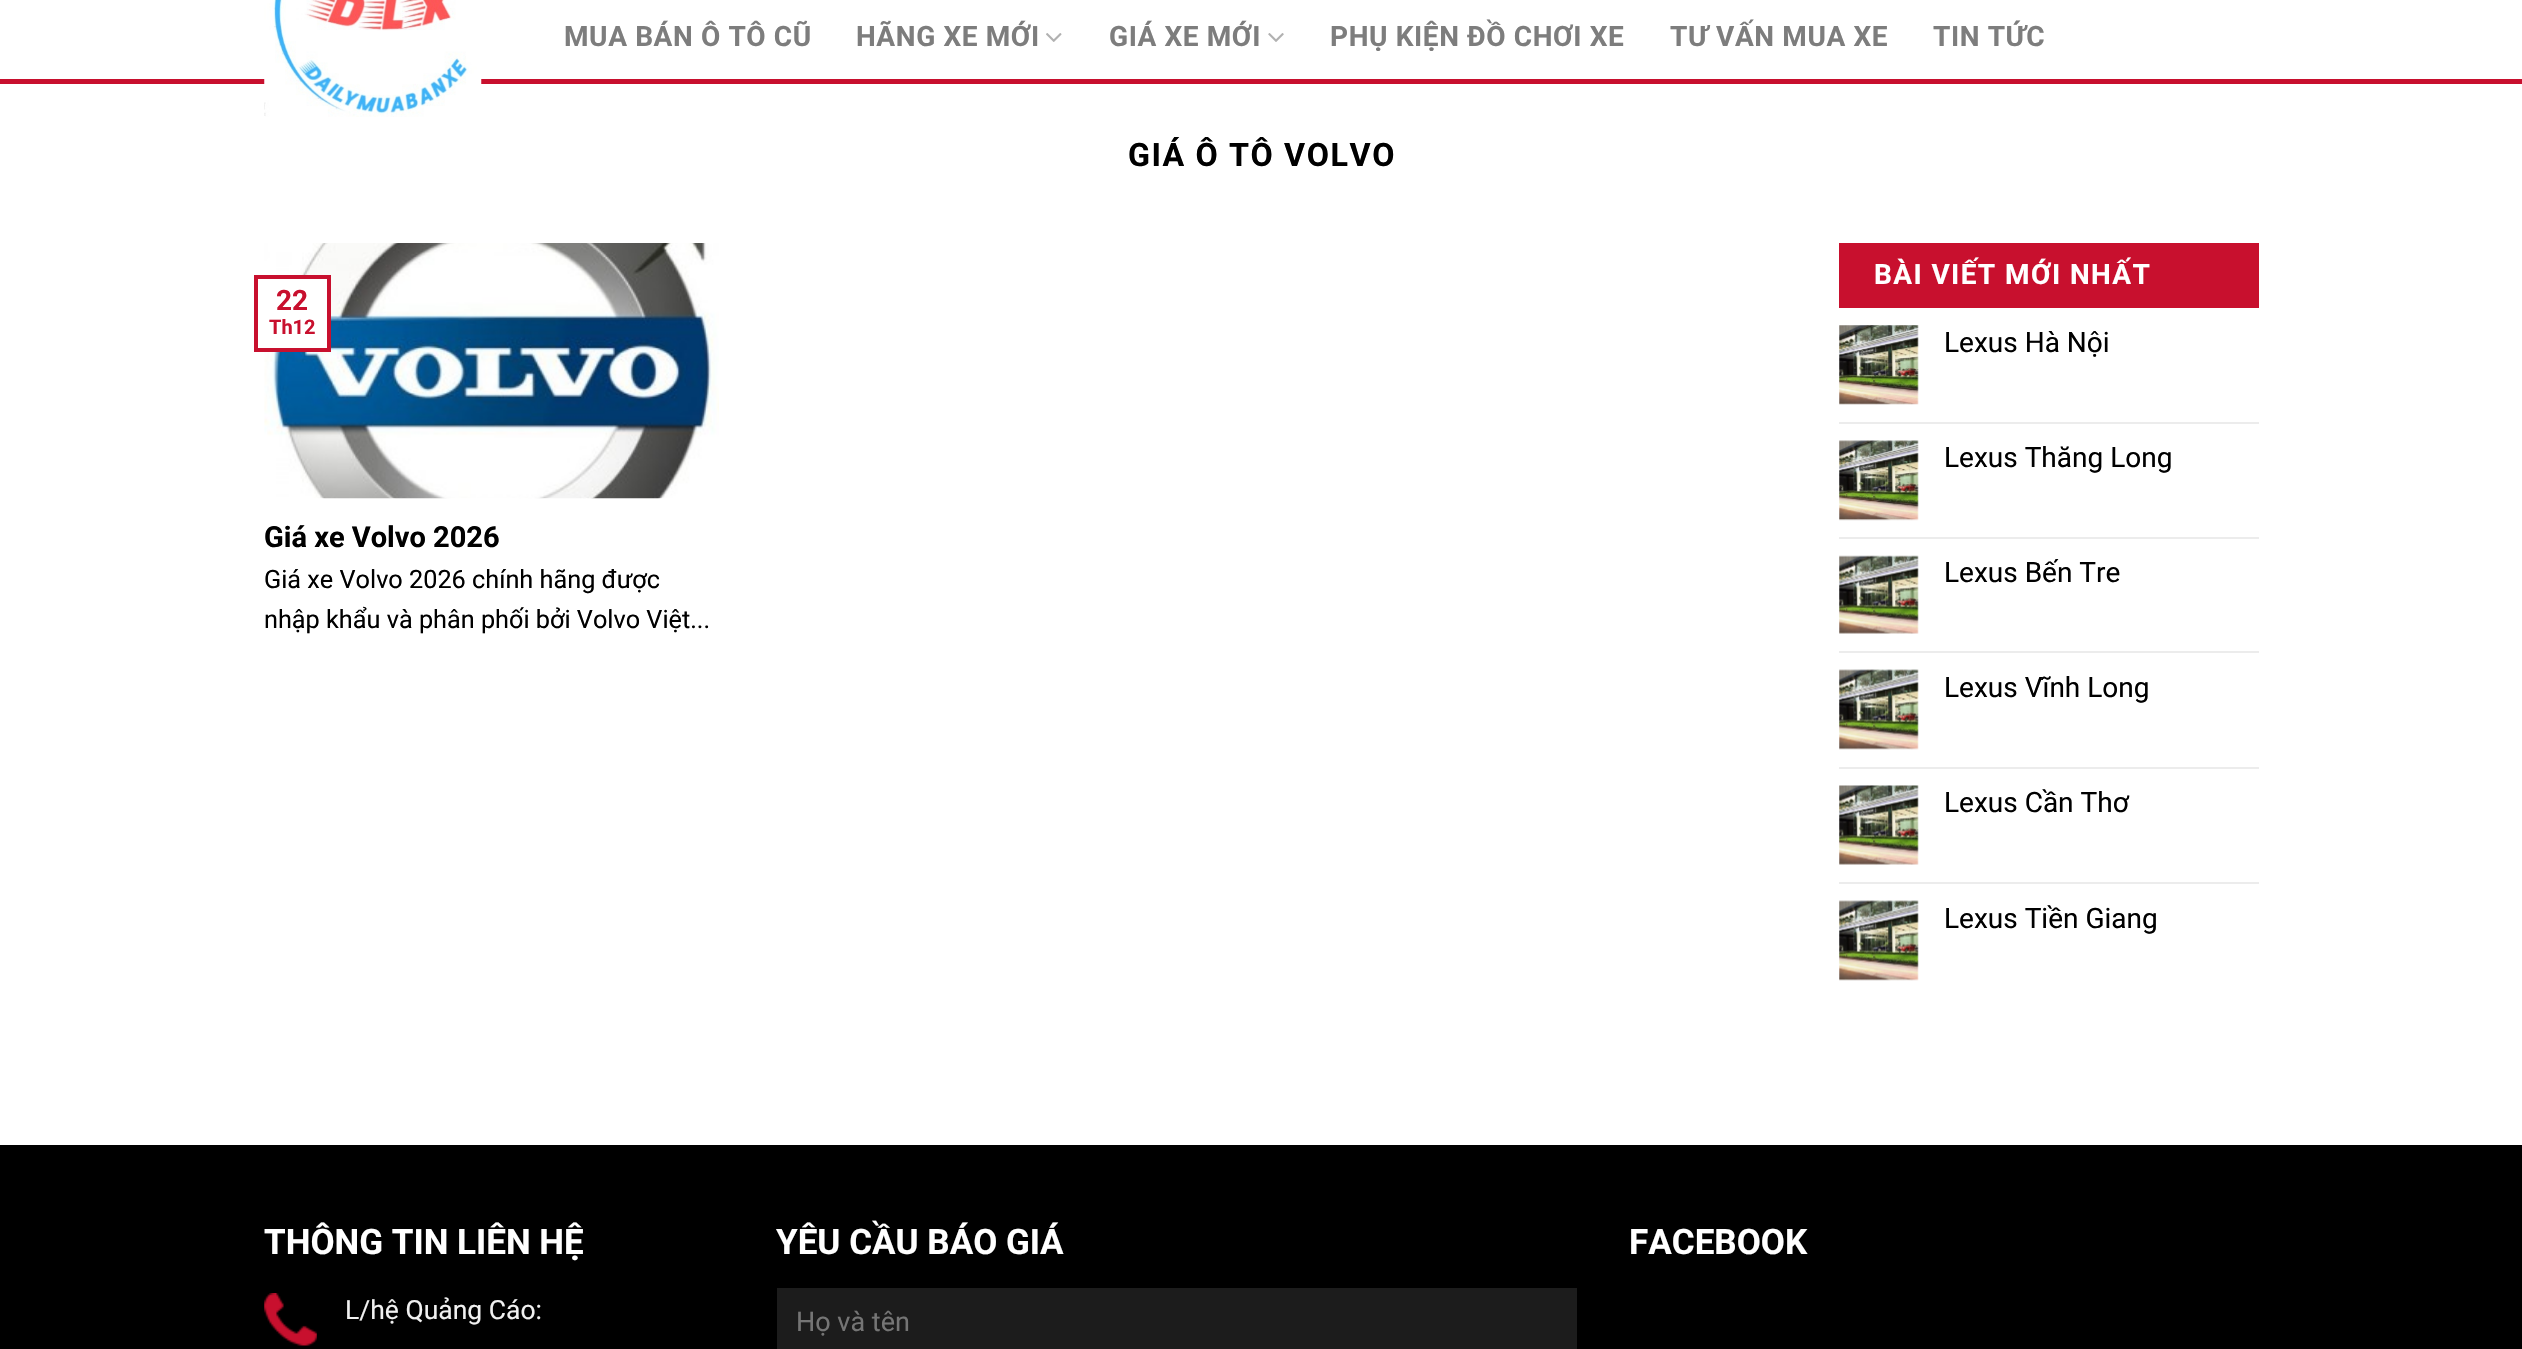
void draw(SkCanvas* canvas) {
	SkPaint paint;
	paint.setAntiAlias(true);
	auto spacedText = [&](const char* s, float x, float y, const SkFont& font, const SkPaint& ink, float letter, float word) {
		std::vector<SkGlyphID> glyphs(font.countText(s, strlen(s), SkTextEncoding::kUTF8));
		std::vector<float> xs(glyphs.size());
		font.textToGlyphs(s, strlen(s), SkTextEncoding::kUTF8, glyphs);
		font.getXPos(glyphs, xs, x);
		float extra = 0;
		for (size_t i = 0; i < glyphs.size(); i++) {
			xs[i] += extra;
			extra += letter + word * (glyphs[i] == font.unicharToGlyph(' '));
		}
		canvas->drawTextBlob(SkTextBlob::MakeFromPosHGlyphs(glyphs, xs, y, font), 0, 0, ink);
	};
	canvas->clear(0xffffffff);
	paint.setColor(0xffc8102e);
	canvas->drawRect(SkRect::MakeXYWH(0, 79, 2522, 5), paint);
	canvas->drawImageRect(SkImages::DeferredFromEncodedData(SkData::MakeFromFileName("img1.png")), SkRect::MakeXYWH(264, 0, 218, 117), SkSamplingOptions());
	SkFont f1(fontMgr->matchFamilyStyle("Roboto", SkFontStyle::Bold()), 28);
	f1.setSubpixel(true);
	paint.setColor(0xff7d7d7d);
	spacedText("MUA BÁN Ô TÔ CŨ", 564, 46, f1, paint, 0.6, 0);
	spacedText("HÃNG XE MỚI", 856, 46, f1, paint, 0.6, 0);
	canvas->drawImageRect(SkImages::DeferredFromEncodedData(SkData::MakeFromFileName("img2.png")), SkRect::MakeXYWH(1046, 33, 16, 9), SkSamplingOptions());
	spacedText("GIÁ XE MỚI", 1109, 46, f1, paint, 0.6, 0);
	canvas->drawImageRect(SkImages::DeferredFromEncodedData(SkData::MakeFromFileName("img3.png")), SkRect::MakeXYWH(1268, 33, 16, 9), SkSamplingOptions());
	spacedText("PHỤ KIỆN ĐỒ CHƠI XE", 1330, 46, f1, paint, 0.6, 0);
	spacedText("TƯ VẤN MUA XE", 1670, 46, f1, paint, 0.6, 0);
	spacedText("TIN TỨC", 1933, 46, f1, paint, 0.6, 0);
	SkFont f2(fontMgr->matchFamilyStyle("Roboto", SkFontStyle::Bold()), 32.25);
	f2.setSubpixel(true);
	paint.setColor(0xff000000);
	spacedText("GIÁ Ô TÔ VOLVO", 1128, 166, f2, paint, 1.6, 0);
	canvas->drawImageRect(SkImages::DeferredFromEncodedData(SkData::MakeFromFileName("img4.png")), SkRect::MakeXYWH(264, 243, 455, 256), SkSamplingOptions());
	paint.setColor(0xffffffff);
	canvas->drawRect(SkRect::MakeXYWH(264, 279, 63, 69), paint);
	paint.setStroke(true);
	paint.setStrokeWidth(4);
	paint.setColor(0xffc8102e);
	canvas->drawRect(SkRect::MakeXYWH(256, 277, 73, 73), paint);
	paint.setStroke(false);
	canvas->drawString("22", 276, 310, f1, paint);
	SkFont f3(fontMgr->matchFamilyStyle("Roboto", SkFontStyle::Bold()), 20);
	f3.setSubpixel(true);
	canvas->drawString("Th12", 269, 334, f3, paint);
	SkFont f4(fontMgr->matchFamilyStyle("Roboto", SkFontStyle::Bold()), 29);
	f4.setSubpixel(true);
	paint.setColor(0xff000000);
	canvas->drawString("Giá xe Volvo 2026", 264, 547, f4, paint);
	SkFont f5(fontMgr->matchFamilyStyle("Roboto", SkFontStyle::Normal()), 25.25);
	f5.setSubpixel(true);
	canvas->drawString("Giá xe Volvo 2026 chính hãng được", 264, 588, f5, paint);
	canvas->drawString("nhập khẩu và phân phối bởi Volvo Việt...", 264, 628, f5, paint);
	paint.setColor(0xffc8102e);
	canvas->drawRect(SkRect::MakeXYWH(1839, 243, 420, 65), paint);
	paint.setColor(0xffffffff);
	spacedText("BÀI VIẾT MỚI NHẤT", 1874, 284, f1, paint, 1.4, 0);
	canvas->drawImageRect(SkImages::DeferredFromEncodedData(SkData::MakeFromFileName("img5.png")), SkRect::MakeXYWH(1839, 325, 80, 80), SkSamplingOptions());
	SkFont f6(fontMgr->matchFamilyStyle("Roboto", SkFontStyle::Normal()), 28);
	f6.setSubpixel(true);
	paint.setColor(0xff000000);
	canvas->drawString("Lexus Hà Nội", 1944, 352, f6, paint);
	paint.setColor(0xffececec);
	canvas->drawRect(SkRect::MakeXYWH(1839, 422, 420, 2), paint);
	canvas->drawImageRect(SkImages::DeferredFromEncodedData(SkData::MakeFromFileName("img6.png")), SkRect::MakeXYWH(1839, 440, 80, 81), SkSamplingOptions());
	paint.setColor(0xff000000);
	canvas->drawString("Lexus Thăng Long", 1944, 467, f6, paint);
	paint.setColor(0xffececec);
	canvas->drawRect(SkRect::MakeXYWH(1839, 537, 420, 2), paint);
	canvas->drawImageRect(SkImages::DeferredFromEncodedData(SkData::MakeFromFileName("img7.png")), SkRect::MakeXYWH(1839, 555, 80, 79), SkSamplingOptions());
	paint.setColor(0xff000000);
	canvas->drawString("Lexus Bến Tre", 1944, 582, f6, paint);
	paint.setColor(0xffececec);
	canvas->drawRect(SkRect::MakeXYWH(1839, 651, 420, 2), paint);
	canvas->drawImageRect(SkImages::DeferredFromEncodedData(SkData::MakeFromFileName("img8.png")), SkRect::MakeXYWH(1839, 669, 80, 81), SkSamplingOptions());
	paint.setColor(0xff000000);
	canvas->drawString("Lexus Vĩnh Long", 1944, 697, f6, paint);
	paint.setColor(0xffececec);
	canvas->drawRect(SkRect::MakeXYWH(1839, 767, 420, 2), paint);
	canvas->drawImageRect(SkImages::DeferredFromEncodedData(SkData::MakeFromFileName("img9.png")), SkRect::MakeXYWH(1839, 785, 80, 80), SkSamplingOptions());
	paint.setColor(0xff000000);
	canvas->drawString("Lexus Cần Thơ", 1944, 812, f6, paint);
	paint.setColor(0xffececec);
	canvas->drawRect(SkRect::MakeXYWH(1839, 882, 420, 2), paint);
	canvas->drawImageRect(SkImages::DeferredFromEncodedData(SkData::MakeFromFileName("img8.png")), SkRect::MakeXYWH(1839, 900, 80, 81), SkSamplingOptions());
	paint.setColor(0xff000000);
	canvas->drawString("Lexus Tiền Giang", 1944, 928, f6, paint);
	canvas->drawRect(SkRect::MakeXYWH(0, 1145, 2522, 204), paint);
	SkFont f7(fontMgr->matchFamilyStyle("Roboto", SkFontStyle::Bold()), 35);
	f7.setSubpixel(true);
	paint.setColor(0xffffffff);
	canvas->drawString("THÔNG TIN LIÊN HỆ", 264, 1254, f7, paint);
	canvas->drawImageRect(SkImages::DeferredFromEncodedData(SkData::MakeFromFileName("img10.png")), SkRect::MakeXYWH(264, 1293, 53, 53), SkSamplingOptions());
	SkFont f8(fontMgr->matchFamilyStyle("Roboto", SkFontStyle::Normal()), 26.5);
	f8.setSubpixel(true);
	paint.setColor(0xfff1f1f1);
	canvas->drawString("L/hệ Quảng Cáo:", 345, 1319, f8, paint);
	paint.setColor(0xffffffff);
	canvas->drawString("YÊU CẦU BÁO GIÁ", 776, 1254, f7, paint);
	paint.setColor(0xff1c1c1c);
	canvas->drawRect(SkRect::MakeXYWH(777, 1288, 800, 61), paint);
	SkFont f9(fontMgr->matchFamilyStyle("Roboto", SkFontStyle::Normal()), 27);
	f9.setSubpixel(true);
	paint.setColor(0xff757575);
	canvas->drawString("Họ và tên", 796, 1331, f9, paint);
	paint.setColor(0xffffffff);
	canvas->drawString("FACEBOOK", 1629, 1254, f7, paint);
}
